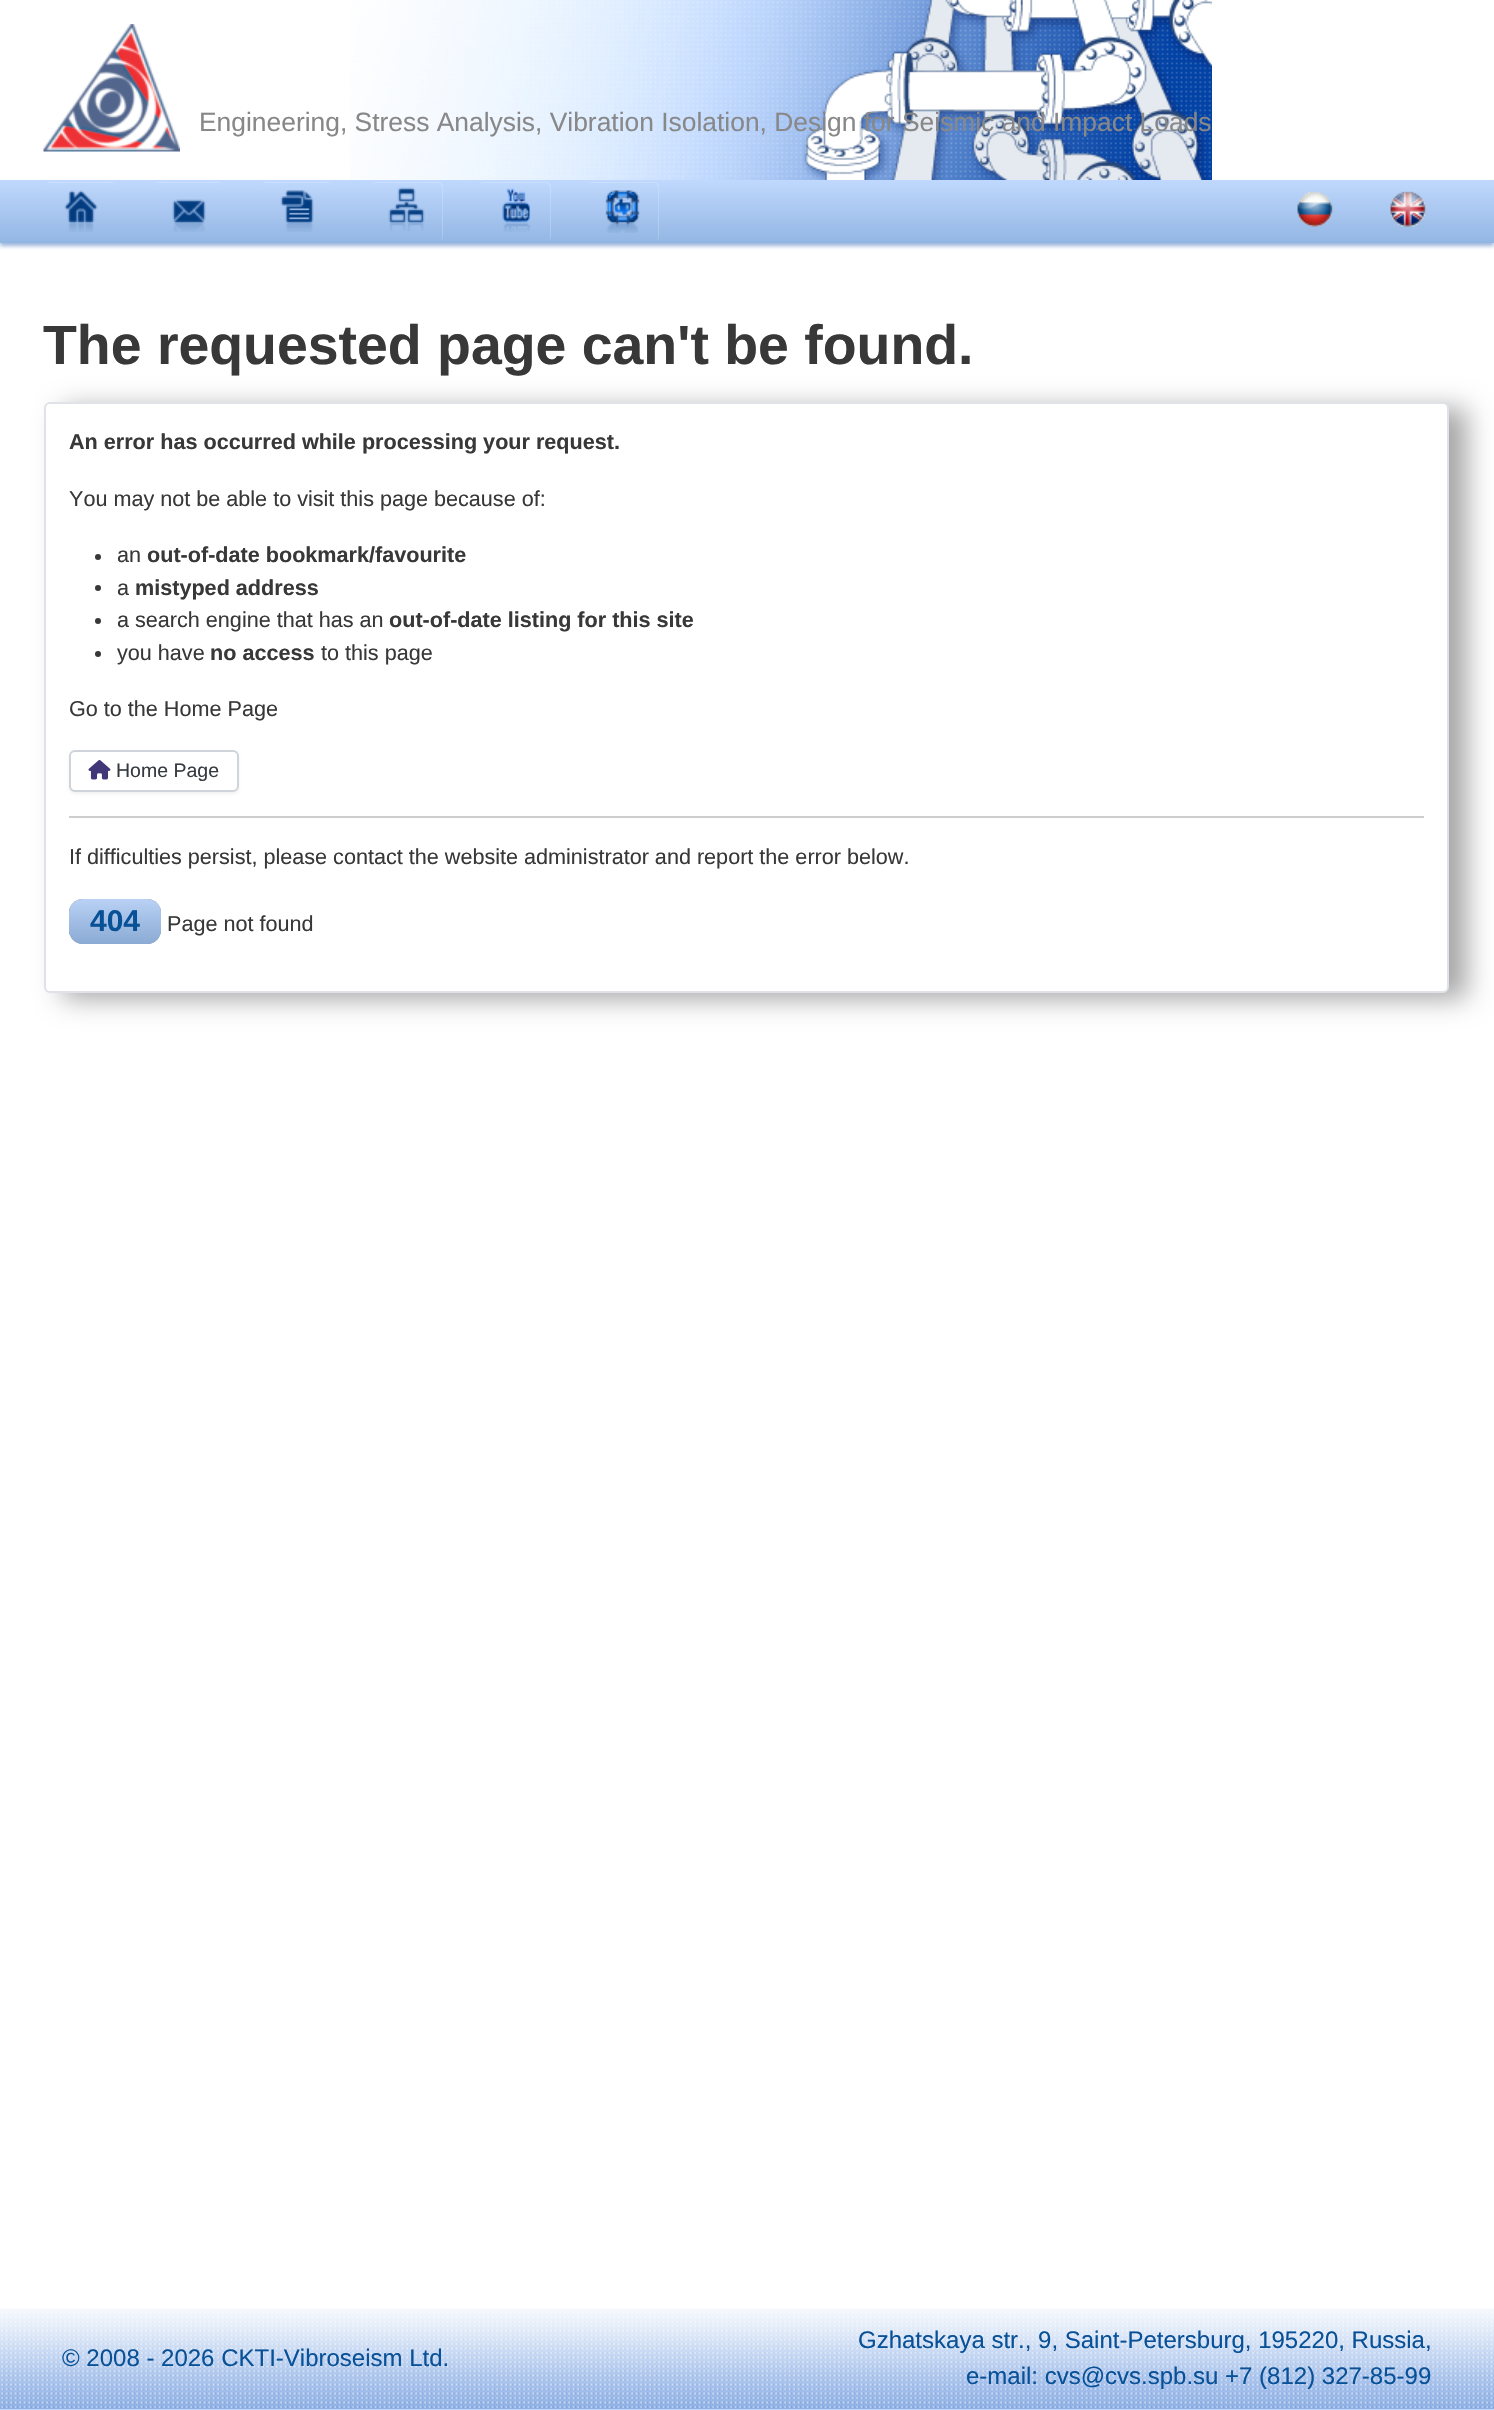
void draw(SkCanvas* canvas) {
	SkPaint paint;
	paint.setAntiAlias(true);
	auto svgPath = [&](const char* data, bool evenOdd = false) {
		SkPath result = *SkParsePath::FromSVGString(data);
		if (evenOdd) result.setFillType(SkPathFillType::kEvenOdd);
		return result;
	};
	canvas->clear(0xffffffff);
	paint.setColor(0x660343a5);
	paint.setMaskFilter(SkMaskFilter::MakeBlur(kNormal_SkBlurStyle, 2));
	canvas->drawRect(SkRect::MakeXYWH(0, 183, 1494, 63), paint);
	paint.setMaskFilter(nullptr);
	canvas->drawImageRect(SkImages::DeferredFromEncodedData(SkData::MakeFromFileName("img1.png")), SkRect::MakeXYWH(350, 0, 862, 180), SkSamplingOptions());
	canvas->drawImageRect(SkImages::DeferredFromEncodedData(SkData::MakeFromFileName("img2.png")), SkRect::MakeXYWH(43, 24, 137, 128), SkSamplingOptions());
	SkFont f1(fontMgr->matchFamilyStyle("Liberation Sans", SkFontStyle::Normal()), 26.4);
	f1.setSubpixel(true);
	paint.setColor(0xff888888);
	canvas->drawString("Engineering, Stress Analysis, Vibration Isolation, Design for Seismic and Impact Loads", 199, 131, f1, paint);
	{
		const SkColor colors[] = {0xffc0d8fd, 0xff92b6e3};
		const float stops[] = {0, 1};
		const SkPoint ends[] = {{747, 180}, {747, 243}};
		paint.setShader(SkGradientShader::MakeLinear(ends, colors, stops, 2, SkTileMode::kClamp));
		paint.setAlpha(255);
	}
	canvas->drawRect(SkRect::MakeXYWH(0, 180, 1494, 63), paint);
	paint.setShader(nullptr);
	paint.setColor(0xffcbdffd);
	canvas->drawPath(svgPath("M50 183H112C115 183 117 185 117 188C117 180 107 182 102 182H60C55 182 45 180 45 188C45 185 47 183 50 183Z"), paint);
	canvas->drawImageRect(SkImages::DeferredFromEncodedData(SkData::MakeFromFileName("img3.png")), SkRect::MakeXYWH(64, 190, 34, 42), SkSamplingOptions());
	canvas->drawPath(svgPath("M158 183H220C223 183 225 185 225 188C225 180 215 182 210 182H168C163 182 153 180 153 188C153 185 155 183 158 183Z"), paint);
	canvas->drawImageRect(SkImages::DeferredFromEncodedData(SkData::MakeFromFileName("img4.png")), SkRect::MakeXYWH(172, 199, 34, 33), SkSamplingOptions());
	canvas->drawPath(svgPath("M266 183H328C331 183 333 185 333 188C333 180 323 182 318 182H276C271 182 261 180 261 188C261 185 263 183 266 183Z"), paint);
	canvas->drawImageRect(SkImages::DeferredFromEncodedData(SkData::MakeFromFileName("img5.png")), SkRect::MakeXYWH(280, 190, 34, 42), SkSamplingOptions());
	paint.setColor(0x33ffffff);
	canvas->drawPath(svgPath("M375 183H438C440 183 442 185 442 188V238L441 241C442 240 443 238 443 237V187C443 184 441 182 438 182H376C374 182 373 183 372 184Z"), paint);
	canvas->drawImageRect(SkImages::DeferredFromEncodedData(SkData::MakeFromFileName("img6.png")), SkRect::MakeXYWH(388, 187, 37, 44), SkSamplingOptions());
	canvas->drawPath(svgPath("M483 183H546C548 183 550 185 550 188V238L549 241C550 240 551 238 551 237V187C551 184 549 182 546 182H484C482 182 481 183 480 184Z"), paint);
	canvas->drawImageRect(SkImages::DeferredFromEncodedData(SkData::MakeFromFileName("img7.png")), SkRect::MakeXYWH(502, 188, 29, 44), SkSamplingOptions());
	canvas->drawPath(svgPath("M591 183H654C656 183 658 185 658 188V238L657 241C658 240 659 238 659 237V187C659 184 657 182 654 182H592C590 182 589 183 588 184Z"), paint);
	canvas->drawImageRect(SkImages::DeferredFromEncodedData(SkData::MakeFromFileName("img8.png")), SkRect::MakeXYWH(605, 190, 35, 43), SkSamplingOptions());
	canvas->drawImageRect(SkImages::DeferredFromEncodedData(SkData::MakeFromFileName("img9.png")), SkRect::MakeXYWH(1297, 191, 36, 36), SkSamplingOptions());
	canvas->drawImageRect(SkImages::DeferredFromEncodedData(SkData::MakeFromFileName("img10.png")), SkRect::MakeXYWH(1390, 191, 36, 36), SkSamplingOptions());
	SkFont f2(fontMgr->matchFamilyStyle("Liberation Sans", SkFontStyle::Bold()), 55.4);
	f2.setSubpixel(true);
	paint.setColor(0xff383838);
	canvas->drawString("The requested page can't be found.", 43, 364, f2, paint);
	paint.setColor(0x59000000);
	paint.setMaskFilter(SkMaskFilter::MakeBlur(kNormal_SkBlurStyle, 13.5));
	canvas->drawRoundRect(SkRect::MakeXYWH(62, 408, 1405, 591), 6, 6, paint);
	paint.setMaskFilter(nullptr);
	paint.setColor(0xffffffff);
	canvas->drawRoundRect(SkRect::MakeXYWH(45, 403, 1403, 589), 5, 5, paint);
	paint.setStroke(true);
	paint.setStrokeWidth(2);
	paint.setColor(0xffdfe3e7);
	canvas->drawRoundRect(SkRect::MakeXYWH(45, 403, 1403, 589), 5, 5, paint);
	SkFont f3(fontMgr->matchFamilyStyle("Liberation Sans", SkFontStyle::Bold()), 21.6);
	f3.setSubpixel(true);
	paint.setStroke(false);
	paint.setColor(0xff383838);
	canvas->drawString("An error has occurred while processing your request.", 69, 449, f3, paint);
	SkFont f4(fontMgr->matchFamilyStyle("Liberation Sans", SkFontStyle::Normal()), 21.6);
	f4.setSubpixel(true);
	canvas->drawString("You may not be able to visit this page because of:", 69, 506, f4, paint);
	canvas->drawCircle(98, 557, 3, paint);
	canvas->drawString("an", 117, 562, f4, paint);
	canvas->drawString("out-of-date bookmark/favourite", 147, 562, f3, paint);
	canvas->drawCircle(98, 588, 3, paint);
	canvas->drawString("a", 117, 595, f4, paint);
	canvas->drawString("mistyped address", 135, 595, f3, paint);
	canvas->drawCircle(98, 621, 3, paint);
	canvas->drawString("a search engine that has an", 117, 627, f4, paint);
	canvas->drawString("out-of-date listing for this site", 389, 627, f3, paint);
	canvas->drawCircle(98, 654, 3, paint);
	canvas->drawString("you have", 117, 660, f4, paint);
	canvas->drawString("no access", 210, 660, f3, paint);
	canvas->drawString("to this page", 321, 660, f4, paint);
	canvas->drawString("Go to the Home Page", 69, 716, f4, paint);
	paint.setColor(0x0d000000);
	paint.setMaskFilter(SkMaskFilter::MakeBlur(kNormal_SkBlurStyle, 1.5));
	canvas->drawRoundRect(SkRect::MakeXYWH(69, 752, 170, 42), 6, 6, paint);
	paint.setMaskFilter(nullptr);
	paint.setColor(0xffffffff);
	canvas->drawRoundRect(SkRect::MakeXYWH(70, 751, 168, 40), 5, 5, paint);
	paint.setStroke(true);
	paint.setColor(0xffced4da);
	canvas->drawRoundRect(SkRect::MakeXYWH(70, 751, 168, 40), 5, 5, paint);
	canvas->drawImageRect(SkImages::DeferredFromEncodedData(SkData::MakeFromFileName("img11.png")), SkRect::MakeXYWH(88, 760, 23, 20), SkSamplingOptions());
	SkFont f5(fontMgr->matchFamilyStyle("Liberation Sans", SkFontStyle::Normal()), 19.5);
	f5.setSubpixel(true);
	paint.setStroke(false);
	paint.setColor(0xff343a40);
	canvas->drawString("Home Page", 116, 777, f5, paint);
	paint.setColor(0xffcdcdcd);
	canvas->drawRect(SkRect::MakeXYWH(69, 816, 1355, 2), paint);
	paint.setColor(0xff383838);
	canvas->drawString("If difficulties persist, please contact the website administrator and report the error below.", 69, 864, f4, paint);
	paint.setColor(0xff6c757d);
	canvas->drawRoundRect(SkRect::MakeXYWH(69, 899, 92, 45), 14, 14, paint);
	{
		const SkColor colors[] = {0xf2bed6fb, 0xd990b4e3};
		const float stops[] = {0, 1};
		const SkPoint ends[] = {{115, 899}, {115, 944}};
		paint.setShader(SkGradientShader::MakeLinear(ends, colors, stops, 2, SkTileMode::kClamp));
		paint.setAlpha(255);
	}
	canvas->drawRoundRect(SkRect::MakeXYWH(69, 899, 92, 45), 14, 14, paint);
	SkFont f6(fontMgr->matchFamilyStyle("Liberation Sans", SkFontStyle::Bold()), 30);
	f6.setSubpixel(true);
	paint.setShader(nullptr);
	paint.setColor(0xff095197);
	canvas->drawString("404", 90, 931, f6, paint);
	paint.setColor(0xff383838);
	canvas->drawString("Page not found", 167, 931, f4, paint);
	canvas->drawImageRect(SkImages::DeferredFromEncodedData(SkData::MakeFromFileName("img12.png")), SkRect::MakeXYWH(0, 2308, 1494, 101), SkSamplingOptions());
	paint.setColor(0xffc0d8fd);
	canvas->drawRect(SkRect::MakeXYWH(0, 2409, 1494, 1), paint);
	SkFont f7(fontMgr->matchFamilyStyle("Liberation Sans", SkFontStyle::Normal()), 24);
	f7.setSubpixel(true);
	paint.setColor(0xff095197);
	canvas->drawString("© 2008 - 2026 CKTI-Vibroseism Ltd.", 62, 2366, f7, paint);
	canvas->drawString("Gzhatskaya str., 9, Saint-Petersburg, 195220, Russia,", 858, 2348, f7, paint);
	canvas->drawString("e-mail: cvs@cvs.spb.su +7 (812) 327-85-99", 966, 2384, f7, paint);
}
